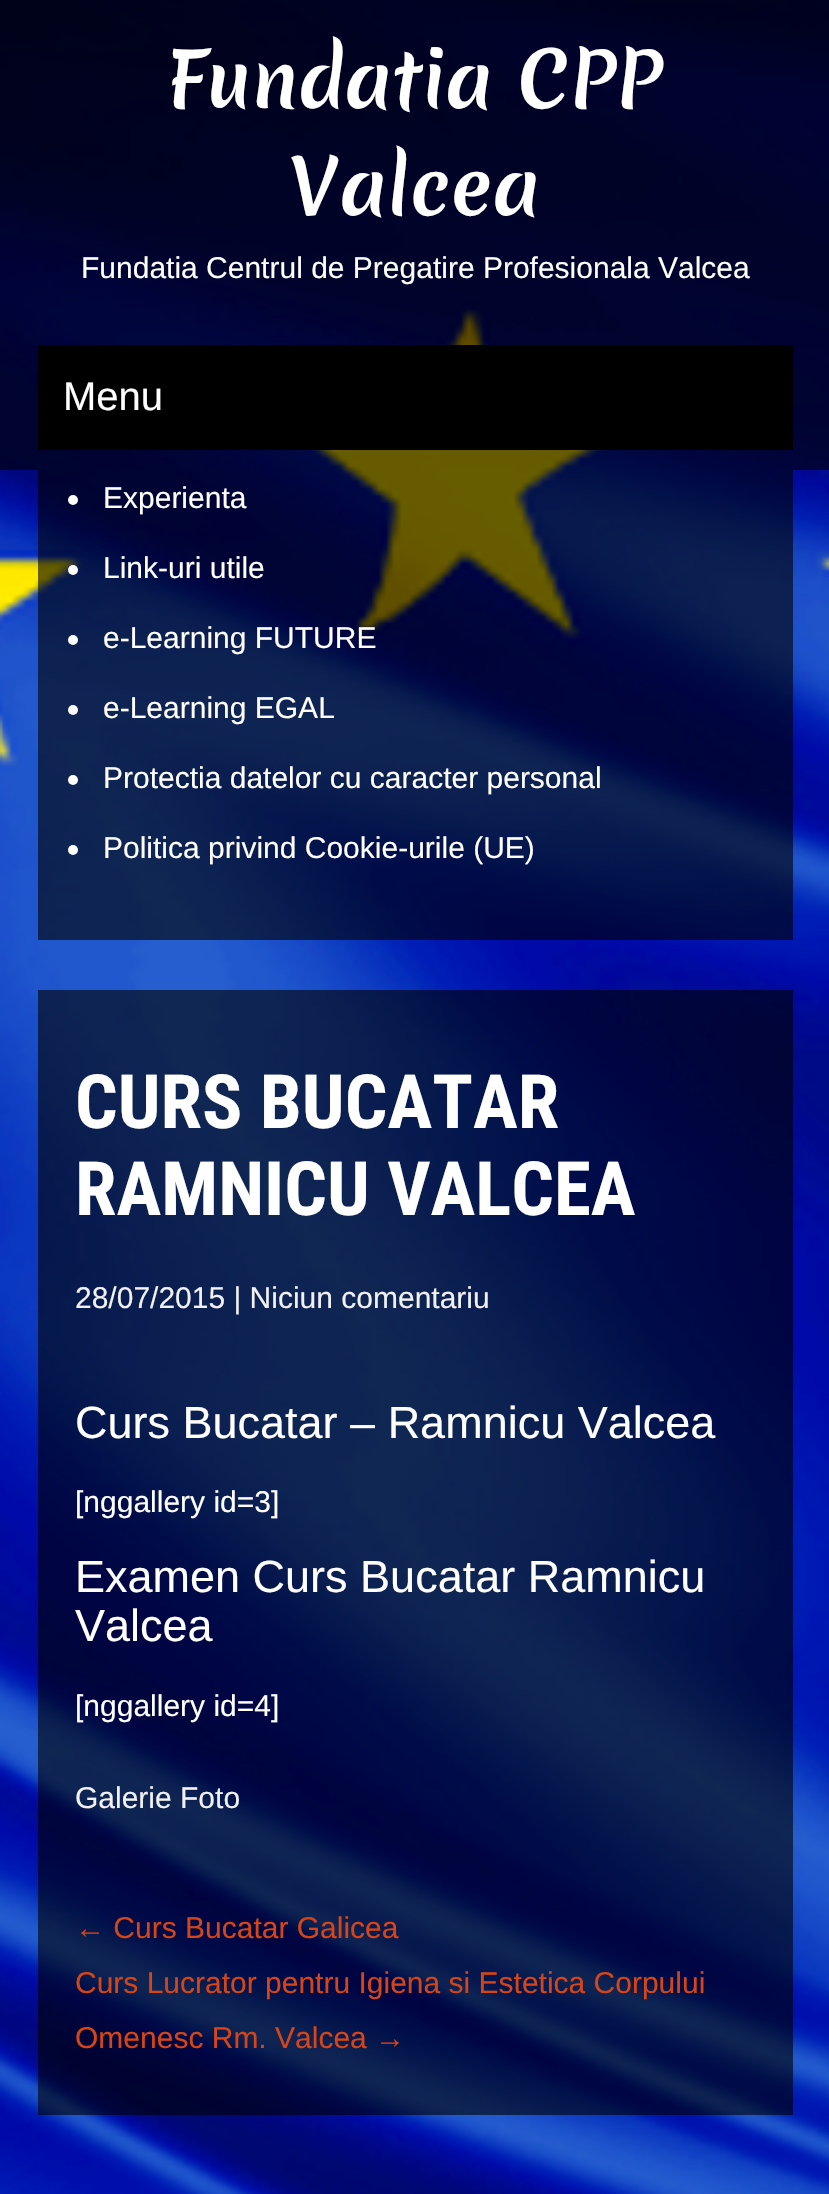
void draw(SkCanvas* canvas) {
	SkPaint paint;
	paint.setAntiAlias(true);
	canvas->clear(0xffffffff);
	canvas->drawImageRect(SkImages::DeferredFromEncodedData(SkData::MakeFromFileName("img1.png")), SkRect::MakeXYWH(0, 0, 829, 2194), SkSamplingOptions());
	paint.setColor(0x99000000);
	canvas->drawRect(SkRect::MakeXYWH(0, 0, 829, 470), paint);
	SkFont f1(fontMgr->matchFamilyStyle("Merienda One", SkFontStyle::Normal()), 75);
	f1.setSubpixel(true);
	paint.setColor(0xffffffff);
	canvas->drawString("Fundatia CPP", 167, 108, f1, paint);
	canvas->drawString("Valcea", 290, 215, f1, paint);
	SkFont f2(fontMgr->matchFamilyStyle("Liberation Sans", SkFontStyle::Normal()), 30);
	f2.setSubpixel(true);
	canvas->drawString("Fundatia Centrul de Pregatire Profesionala Valcea", 81, 278, f2, paint);
	paint.setColor(0xff000000);
	canvas->drawRect(SkRect::MakeXYWH(38, 345, 755, 105), paint);
	SkFont f3(fontMgr->matchFamilyStyle("Liberation Sans", SkFontStyle::Normal()), 40);
	f3.setSubpixel(true);
	paint.setColor(0xffffffff);
	canvas->drawString("Menu", 63, 410, f3, paint);
	paint.setColor(0x99000000);
	canvas->drawRect(SkRect::MakeXYWH(38, 470, 755, 470), paint);
	paint.setColor(0xffffffff);
	canvas->drawCircle(73, 500, 5, paint);
	canvas->drawString("Experienta", 103, 508, f2, paint);
	canvas->drawCircle(73, 570, 5, paint);
	canvas->drawString("Link-uri utile", 103, 578, f2, paint);
	canvas->drawCircle(73, 640, 5, paint);
	canvas->drawString("e-Learning FUTURE", 103, 648, f2, paint);
	canvas->drawCircle(73, 710, 5, paint);
	canvas->drawString("e-Learning EGAL", 103, 718, f2, paint);
	canvas->drawCircle(73, 780, 5, paint);
	canvas->drawString("Protectia datelor cu caracter personal", 103, 788, f2, paint);
	canvas->drawCircle(73, 850, 5, paint);
	canvas->drawString("Politica privind Cookie-urile (UE)", 103, 858, f2, paint);
	paint.setColor(0x99000000);
	canvas->drawRect(SkRect::MakeXYWH(38, 990, 755, 1125), paint);
	SkFont f4(fontMgr->matchFamilyStyle("Roboto Condensed", SkFontStyle::Bold()), 75);
	f4.setSubpixel(true);
	paint.setColor(0xffffffff);
	canvas->drawString("CURS BUCATAR", 75, 1128, f4, paint);
	canvas->drawString("RAMNICU VALCEA", 75, 1215, f4, paint);
	paint.setColor(0xfff1f1f1);
	canvas->drawString("28/07/2015 | Niciun comentariu", 75, 1308, f2, paint);
	SkFont f5(fontMgr->matchFamilyStyle("Liberation Sans", SkFontStyle::Normal()), 45);
	f5.setSubpixel(true);
	paint.setColor(0xffffffff);
	canvas->drawString("Curs Bucatar – Ramnicu Valcea", 75, 1438, f5, paint);
	canvas->drawString("[nggallery id=3]", 75, 1512, f2, paint);
	canvas->drawString("Examen Curs Bucatar Ramnicu", 75, 1592, f5, paint);
	canvas->drawString("Valcea", 75, 1641, f5, paint);
	canvas->drawString("[nggallery id=4]", 75, 1716, f2, paint);
	paint.setColor(0xfff1f1f1);
	canvas->drawString("Galerie Foto", 75, 1808, f2, paint);
	paint.setColor(0xffd74516);
	canvas->drawString("← Curs Bucatar Galicea", 75, 1938, f2, paint);
	canvas->drawString("Curs Lucrator pentru Igiena si Estetica Corpului", 75, 1993, f2, paint);
	canvas->drawString("Omenesc Rm. Valcea →", 75, 2048, f2, paint);
}
